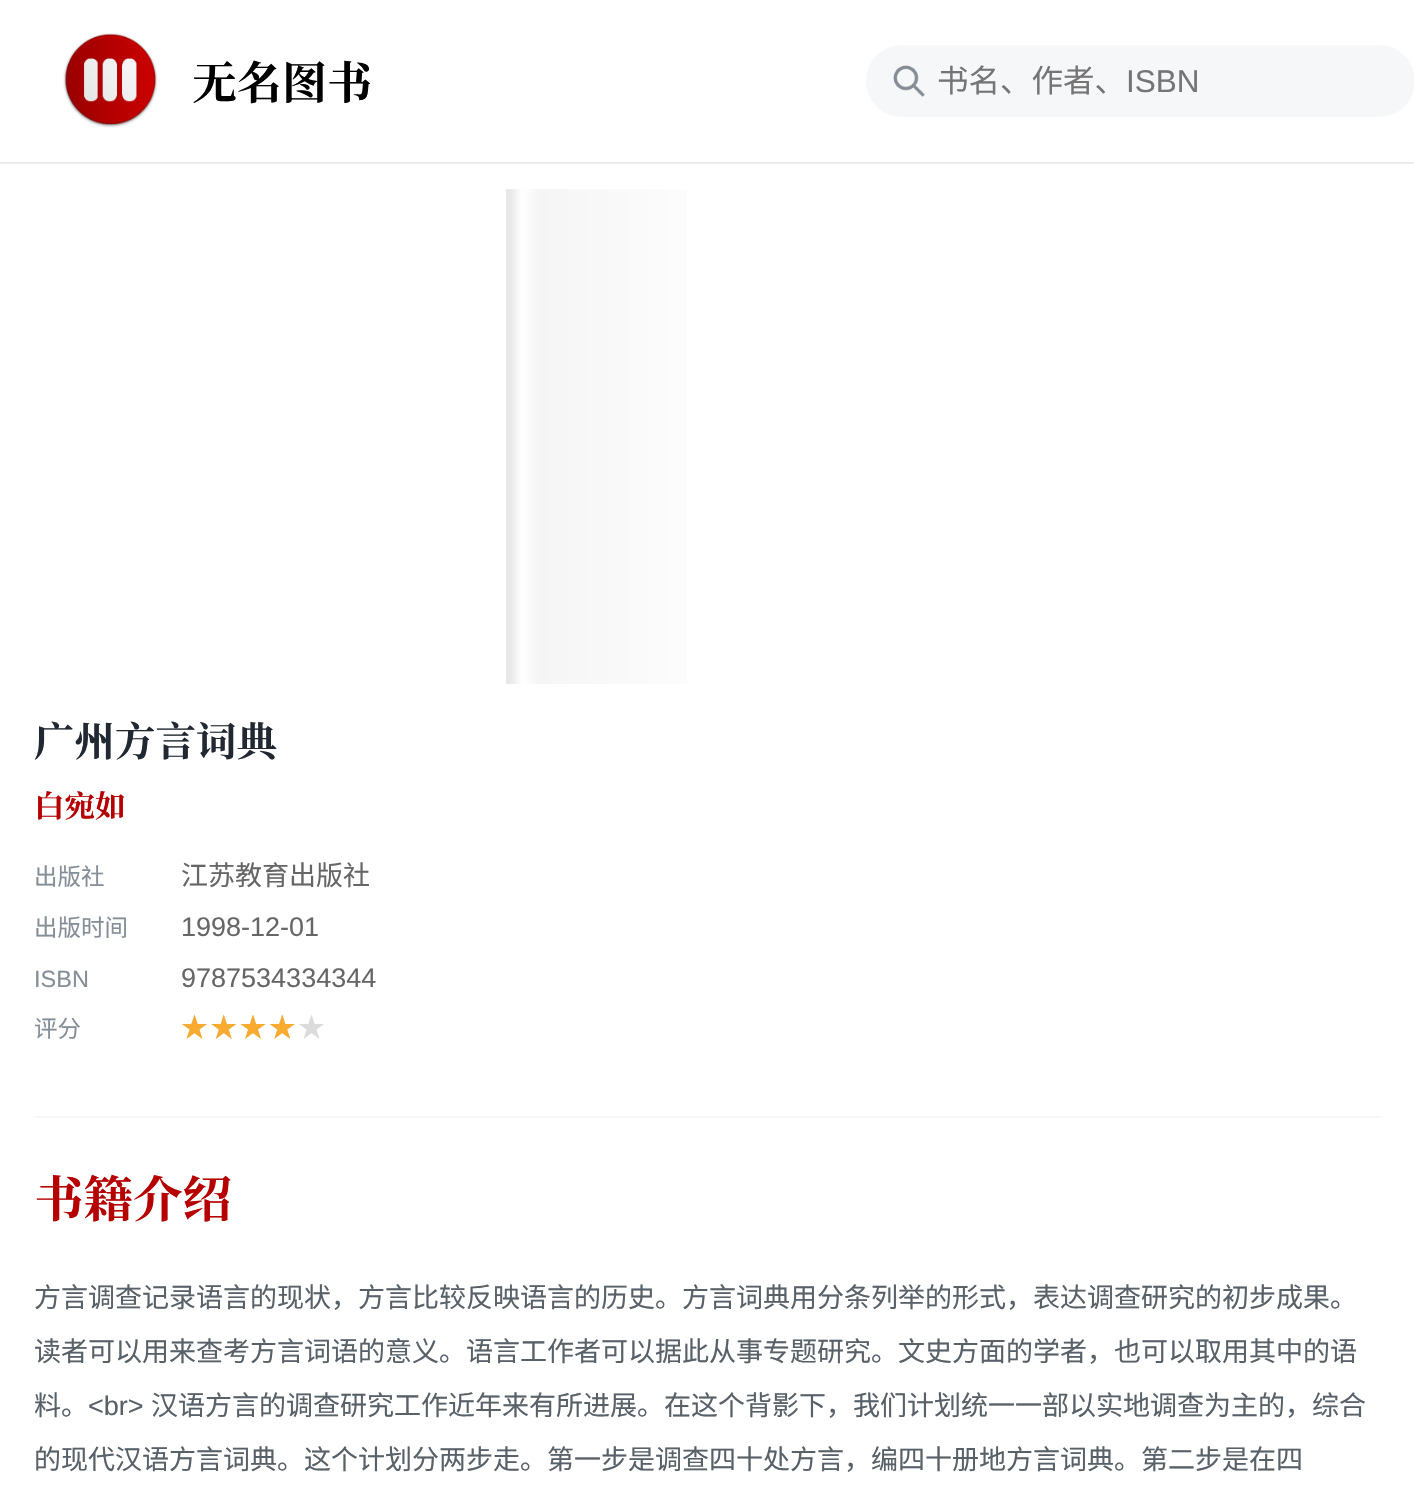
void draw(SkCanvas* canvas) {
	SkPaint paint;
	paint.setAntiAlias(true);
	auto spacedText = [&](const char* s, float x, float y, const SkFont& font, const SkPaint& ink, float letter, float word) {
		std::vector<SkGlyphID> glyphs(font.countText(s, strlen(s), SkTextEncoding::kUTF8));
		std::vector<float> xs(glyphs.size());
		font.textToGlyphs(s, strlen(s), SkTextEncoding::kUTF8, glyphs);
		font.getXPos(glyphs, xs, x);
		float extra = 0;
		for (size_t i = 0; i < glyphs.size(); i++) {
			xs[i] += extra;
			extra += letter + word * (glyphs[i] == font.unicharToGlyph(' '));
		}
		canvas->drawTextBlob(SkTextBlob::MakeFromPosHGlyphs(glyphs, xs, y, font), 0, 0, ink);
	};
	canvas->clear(0xffffffff);
	paint.setColor(0xffebedf1);
	canvas->drawRect(SkRect::MakeXYWH(0, 162, 1414, 2), paint);
	canvas->drawImageRect(SkImages::DeferredFromEncodedData(SkData::MakeFromFileName("img1.png")), SkRect::MakeXYWH(63, 33, 95, 95), SkSamplingOptions());
	SkFont f1(fontMgr->matchFamilyStyle("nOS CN", SkFontStyle::Bold()), 45);
	f1.setSubpixel(true);
	paint.setColor(0xff000000);
	canvas->drawString("无名图书", 192, 99, f1, paint);
	paint.setColor(0xfff6f7f9);
	canvas->drawRoundRect(SkRect::MakeXYWH(866, 45, 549, 72), 36, 36, paint);
	canvas->drawImageRect(SkImages::DeferredFromEncodedData(SkData::MakeFromFileName("img2.png")), SkRect::MakeXYWH(893, 65, 32, 32), SkSamplingOptions());
	SkFont f2(fontMgr->matchFamilyStyle("Noto Sans CJK SC", SkFontStyle::Normal()), 31.5);
	f2.setSubpixel(true);
	paint.setColor(0xff757575);
	canvas->drawString("书名、作者、", 937, 92, f2, paint);
	SkFont f3(fontMgr->matchFamilyStyle("Liberation Sans", SkFontStyle::Normal()), 31.5);
	f3.setSubpixel(true);
	canvas->drawString("ISBN", 1126, 92, f3, paint);
	paint.setColor(0xfff8f8f8);
	canvas->drawRect(SkRect::MakeXYWH(34, 1116, 1348, 2), paint);
	{
		const SkColor colors[] = {0xffe8e8e8, 0xffe8e8e8, 0xffffffff, 0xfff5f5f5, 0xffffffff, 0xffffffff, 0xfffefefe, 0xffffffff};
		const float stops[] = {0, 0.01, 0.04, 0.08, 0.57, 0.91, 0.98, 1};
		const SkPoint ends[] = {{506, 437}, {911, 437}};
		paint.setShader(SkGradientShader::MakeLinear(ends, colors, stops, 8, SkTileMode::kClamp));
		paint.setAlpha(255);
	}
	canvas->drawRect(SkRect::MakeXYWH(506, 189, 181, 495), paint);
	SkFont f4(fontMgr->matchFamilyStyle("nOS CN", SkFontStyle::Bold()), 40.5);
	f4.setSubpixel(true);
	paint.setShader(nullptr);
	paint.setColor(0xff212832);
	canvas->drawString("广州方言词典", 34, 756, f4, paint);
	SkFont f5(fontMgr->matchFamilyStyle("nOS CN", SkFontStyle::Bold()), 30.5);
	f5.setSubpixel(true);
	paint.setColor(0xffb60000);
	canvas->drawString("白宛如", 34, 817, f5, paint);
	SkFont f6(fontMgr->matchFamilyStyle("Noto Sans CJK SC", SkFontStyle::Normal()), 23.5);
	f6.setSubpixel(true);
	paint.setColor(0xff858e97);
	canvas->drawString("出版社", 34, 885, f6, paint);
	SkFont f7(fontMgr->matchFamilyStyle("Noto Sans CJK SC", SkFontStyle::Normal()), 27);
	f7.setSubpixel(true);
	paint.setColor(0xff666666);
	canvas->drawString("江苏教育出版社", 181, 885, f7, paint);
	paint.setColor(0xff858e97);
	canvas->drawString("出版时间", 34, 936, f6, paint);
	SkFont f8(fontMgr->matchFamilyStyle("Liberation Sans", SkFontStyle::Normal()), 27);
	f8.setSubpixel(true);
	paint.setColor(0xff666666);
	canvas->drawString("1998-12-01", 181, 936, f8, paint);
	SkFont f9(fontMgr->matchFamilyStyle("Liberation Sans", SkFontStyle::Normal()), 23.5);
	f9.setSubpixel(true);
	paint.setColor(0xff858e97);
	canvas->drawString("ISBN", 34, 987, f9, paint);
	paint.setColor(0xff666666);
	canvas->drawString("9787534334344", 181, 987, f8, paint);
	paint.setColor(0xff858e97);
	canvas->drawString("评分", 34, 1037, f6, paint);
	paint.setColor(0xffdbdbdb);
	spacedText("★★★★★", 181, 1037, f7, paint, 2.25, 0);
	paint.setColor(0xfff8ab2e);
	spacedText("★★★★", 181, 1037, f7, paint, 2.25, 0);
	SkFont f10(fontMgr->matchFamilyStyle("nOS CN", SkFontStyle::Bold()), 49.5);
	f10.setSubpixel(true);
	paint.setColor(0xffb60000);
	canvas->drawString("书籍介绍", 34, 1217, f10, paint);
	paint.setColor(0xff586068);
	canvas->drawString("方言调查记录语言的现状，方言比较反映语言的历史。方言词典用分条列举的形式，表达调查研究的初步成果。", 34, 1307, f7, paint);
	canvas->drawString("读者可以用来查考方言词语的意义。语言工作者可以据此从事专题研究。文史方面的学者，也可以取用其中的语", 34, 1361, f7, paint);
	canvas->drawString("料。", 34, 1415, f7, paint);
	canvas->drawString("<br>", 88, 1415, f8, paint);
	canvas->drawString("汉语方言的调查研究工作近年来有所进展。在这个背影下，我们计划统一一部以实地调查为主的，综合", 151, 1415, f7, paint);
	canvas->drawString("的现代汉语方言词典。这个计划分两步走。第一步是调查四十处方言，编四十册地方言词典。第二步是在四", 34, 1469, f7, paint);
}
